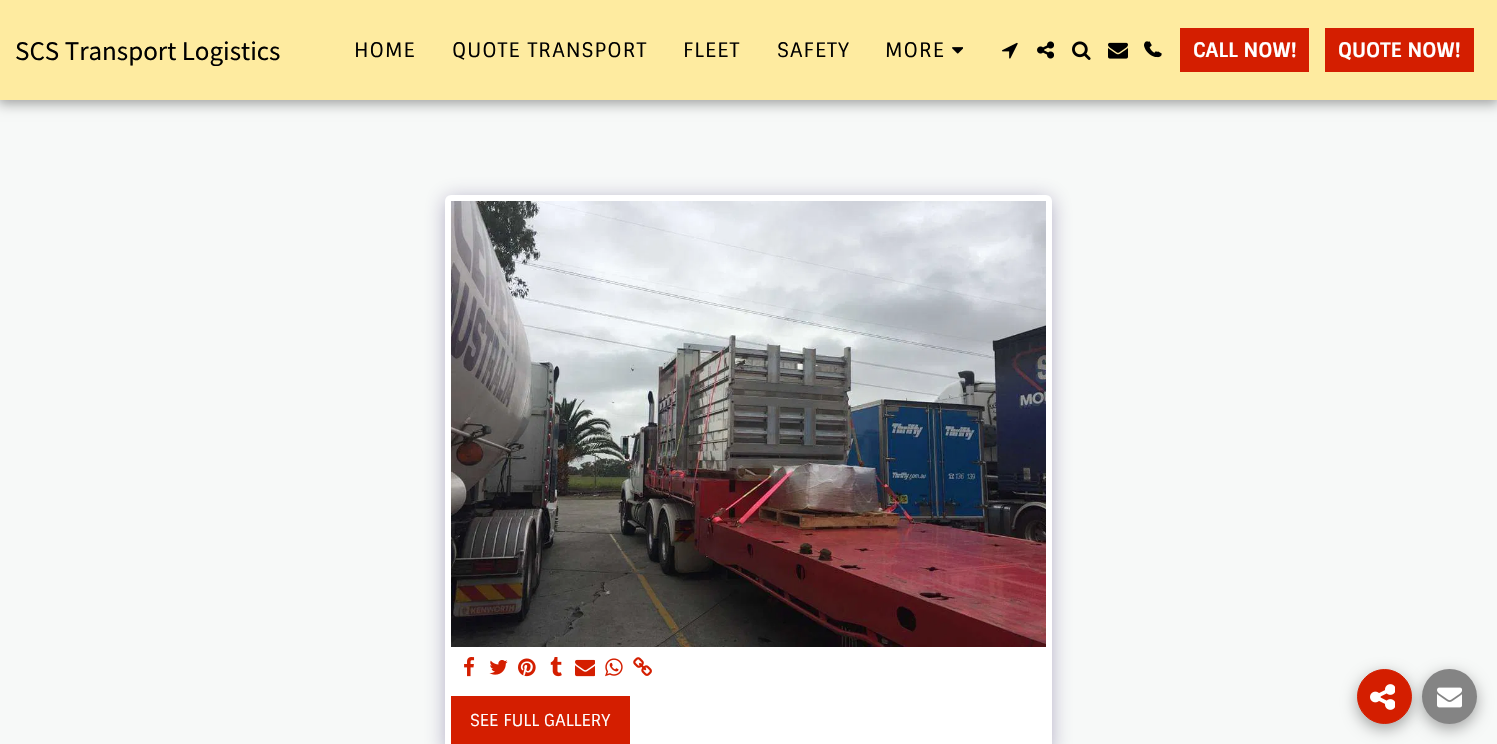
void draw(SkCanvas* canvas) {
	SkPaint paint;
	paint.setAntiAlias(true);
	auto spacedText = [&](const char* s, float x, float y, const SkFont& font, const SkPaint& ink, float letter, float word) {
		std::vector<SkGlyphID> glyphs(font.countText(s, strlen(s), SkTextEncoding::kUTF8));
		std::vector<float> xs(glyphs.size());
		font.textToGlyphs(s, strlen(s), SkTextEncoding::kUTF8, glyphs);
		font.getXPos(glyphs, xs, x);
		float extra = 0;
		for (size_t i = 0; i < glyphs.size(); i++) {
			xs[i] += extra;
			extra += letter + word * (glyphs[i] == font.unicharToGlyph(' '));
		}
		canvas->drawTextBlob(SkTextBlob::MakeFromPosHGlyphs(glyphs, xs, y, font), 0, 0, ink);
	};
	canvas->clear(0xfff7f9f8);
	paint.setColor(0x59000000);
	paint.setMaskFilter(SkMaskFilter::MakeBlur(kNormal_SkBlurStyle, 6));
	canvas->drawRect(SkRect::MakeXYWH(-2, 0, 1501, 104), paint);
	paint.setMaskFilter(nullptr);
	paint.setColor(0xfffeeba0);
	canvas->drawRect(SkRect::MakeXYWH(0, 0, 1497, 100), paint);
	SkFont f1(fontMgr->matchFamilyStyle("Source Sans Pro", SkFontStyle::Normal()), 27);
	f1.setSubpixel(true);
	paint.setColor(0xff000000);
	canvas->drawString("SCS Transport Logistics", 15, 60, f1, paint);
	SkFont f2(fontMgr->matchFamilyStyle("Sintony", SkFontStyle::Normal()), 20);
	f2.setSubpixel(true);
	spacedText("HOME", 354, 57, f2, paint, 1, 0);
	spacedText("QUOTE TRANSPORT", 452, 57, f2, paint, 1, 0);
	spacedText("FLEET", 683, 57, f2, paint, 1, 0);
	spacedText("SAFETY", 777, 57, f2, paint, 1, 0);
	spacedText("MORE", 885, 57, f2, paint, 1, 0);
	canvas->drawImageRect(SkImages::DeferredFromEncodedData(SkData::MakeFromFileName("img1.png")), SkRect::MakeXYWH(952, 47, 11, 7), SkSamplingOptions());
	canvas->drawImageRect(SkImages::DeferredFromEncodedData(SkData::MakeFromFileName("img2.png")), SkRect::MakeXYWH(1002, 42, 16, 17), SkSamplingOptions());
	canvas->drawImageRect(SkImages::DeferredFromEncodedData(SkData::MakeFromFileName("img3.png")), SkRect::MakeXYWH(1037, 41, 17, 18), SkSamplingOptions());
	canvas->drawImageRect(SkImages::DeferredFromEncodedData(SkData::MakeFromFileName("img4.png")), SkRect::MakeXYWH(1072, 41, 19, 19), SkSamplingOptions());
	canvas->drawImageRect(SkImages::DeferredFromEncodedData(SkData::MakeFromFileName("img5.png")), SkRect::MakeXYWH(1108, 42, 20, 17), SkSamplingOptions());
	canvas->drawImageRect(SkImages::DeferredFromEncodedData(SkData::MakeFromFileName("img6.png")), SkRect::MakeXYWH(1147, 41, 15, 17), SkSamplingOptions());
	canvas->drawImageRect(SkImages::DeferredFromEncodedData(SkData::MakeFromFileName("img7.png")), SkRect::MakeXYWH(1144, 41, 13, 16), SkSamplingOptions());
	paint.setColor(0xffd41e00);
	canvas->drawRect(SkRect::MakeXYWH(1180, 28, 129, 44), paint);
	SkFont f3(fontMgr->matchFamilyStyle("Sintony", SkFontStyle::Bold()), 20);
	f3.setSubpixel(true);
	paint.setColor(0xffffffff);
	canvas->drawString("CALL NOW!", 1193, 57, f3, paint);
	paint.setColor(0xffd41e00);
	canvas->drawRect(SkRect::MakeXYWH(1325, 28, 149, 44), paint);
	paint.setColor(0xffffffff);
	canvas->drawString("QUOTE NOW!", 1338, 57, f3, paint);
	paint.setColor(0x664d3f7a);
	paint.setMaskFilter(SkMaskFilter::MakeBlur(kNormal_SkBlurStyle, 10));
	canvas->drawRoundRect(SkRect::MakeXYWH(445, 198, 607, 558), 6, 6, paint);
	paint.setMaskFilter(nullptr);
	paint.setColor(0xffffffff);
	canvas->drawRoundRect(SkRect::MakeXYWH(445, 195, 607, 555), 6, 6, paint);
	canvas->drawImageRect(SkImages::DeferredFromEncodedData(SkData::MakeFromFileName("img8.png")), SkRect::MakeXYWH(451, 201, 595, 446), SkSamplingOptions());
	canvas->drawImageRect(SkImages::DeferredFromEncodedData(SkData::MakeFromFileName("img9.png")), SkRect::MakeXYWH(464, 657, 11, 20), SkSamplingOptions());
	canvas->drawImageRect(SkImages::DeferredFromEncodedData(SkData::MakeFromFileName("img10.png")), SkRect::MakeXYWH(489, 660, 19, 15), SkSamplingOptions());
	canvas->drawImageRect(SkImages::DeferredFromEncodedData(SkData::MakeFromFileName("img11.png")), SkRect::MakeXYWH(518, 658, 18, 19), SkSamplingOptions());
	canvas->drawImageRect(SkImages::DeferredFromEncodedData(SkData::MakeFromFileName("img12.png")), SkRect::MakeXYWH(550, 657, 12, 20), SkSamplingOptions());
	canvas->drawImageRect(SkImages::DeferredFromEncodedData(SkData::MakeFromFileName("img13.png")), SkRect::MakeXYWH(575, 659, 20, 18), SkSamplingOptions());
	canvas->drawImageRect(SkImages::DeferredFromEncodedData(SkData::MakeFromFileName("img14.png")), SkRect::MakeXYWH(605, 658, 18, 19), SkSamplingOptions());
	canvas->drawImageRect(SkImages::DeferredFromEncodedData(SkData::MakeFromFileName("img15.png")), SkRect::MakeXYWH(633, 657, 19, 19), SkSamplingOptions());
	paint.setColor(0xffd41e00);
	canvas->drawRect(SkRect::MakeXYWH(451, 696, 179, 48), paint);
	SkFont f4(fontMgr->matchFamilyStyle("Sintony", SkFontStyle::Normal()), 16.5);
	f4.setSubpixel(true);
	paint.setColor(0xffffffff);
	canvas->drawString("SEE FULL GALLERY", 470, 726, f4, paint);
	paint.setColor(0x59000000);
	paint.setMaskFilter(SkMaskFilter::MakeBlur(kNormal_SkBlurStyle, 7.5));
	canvas->drawRoundRect(SkRect::MakeXYWH(1422, 674, 55, 55), 27.5, 27.5, paint);
	paint.setMaskFilter(nullptr);
	paint.setColor(0xff848484);
	canvas->drawCircle(1449.5, 696.5, 27.5, paint);
	paint.setColor(0x59000000);
	paint.setMaskFilter(SkMaskFilter::MakeBlur(kNormal_SkBlurStyle, 7.5));
	canvas->drawRoundRect(SkRect::MakeXYWH(1357, 674, 55, 55), 27.5, 27.5, paint);
	paint.setMaskFilter(nullptr);
	paint.setColor(0xffd41e00);
	canvas->drawCircle(1384.5, 696.5, 27, paint);
	paint.setStroke(true);
	paint.setStrokeWidth(1);
	canvas->drawCircle(1384.5, 696.5, 27, paint);
	canvas->drawImageRect(SkImages::DeferredFromEncodedData(SkData::MakeFromFileName("img16.png")), SkRect::MakeXYWH(1370, 684, 25, 26), SkSamplingOptions());
	canvas->drawImageRect(SkImages::DeferredFromEncodedData(SkData::MakeFromFileName("img17.png")), SkRect::MakeXYWH(1437, 687, 25, 21), SkSamplingOptions());
}
